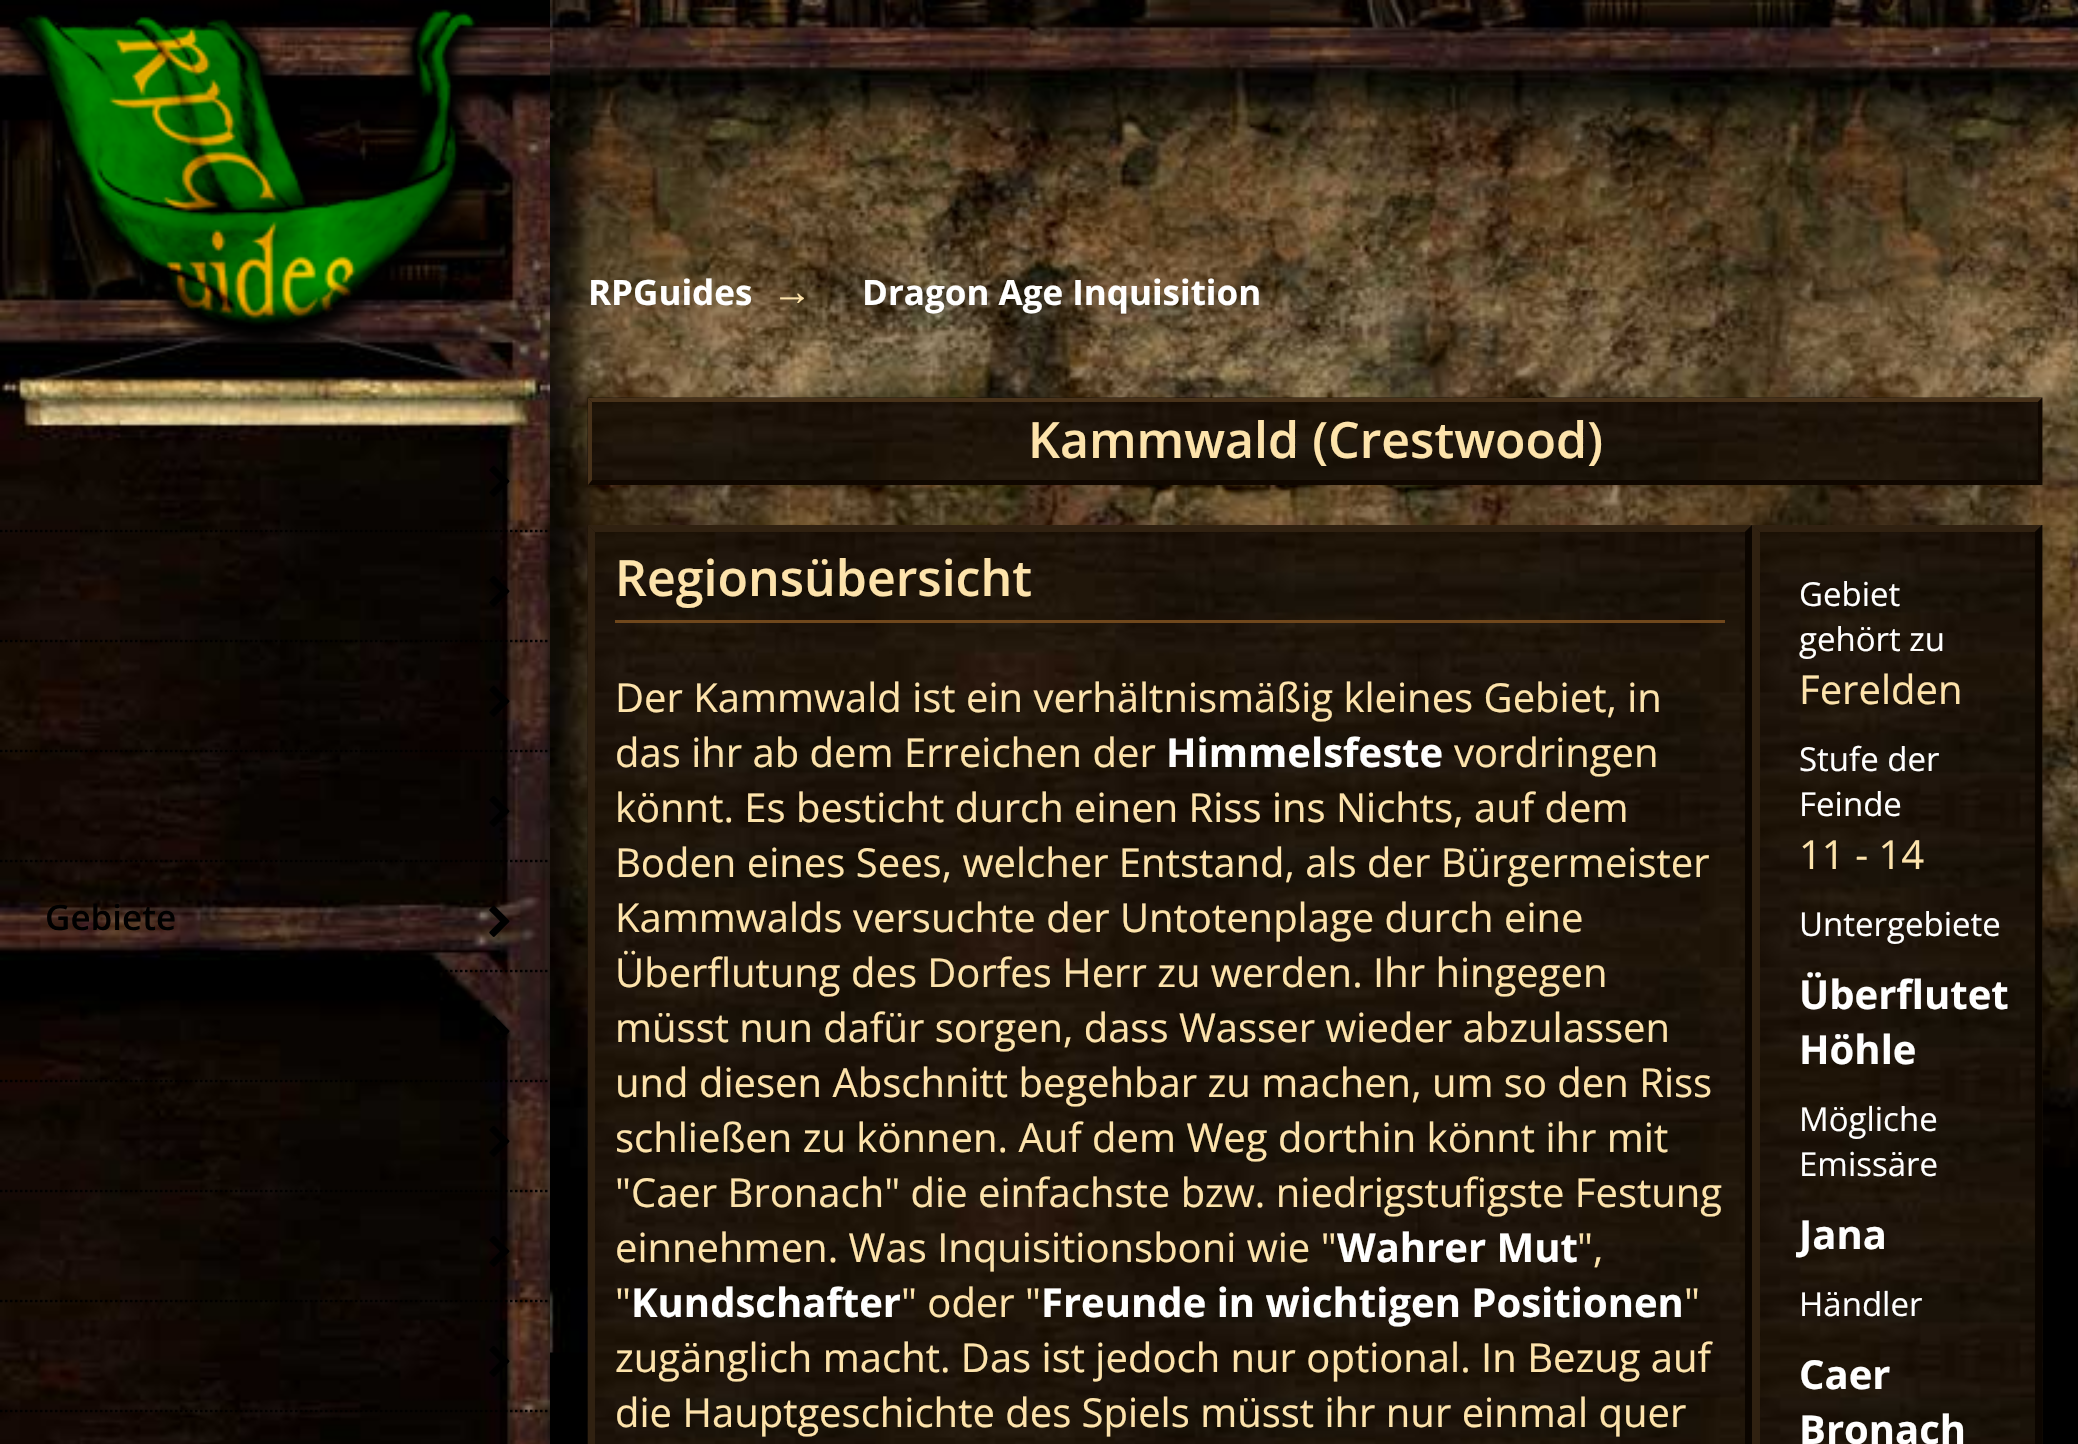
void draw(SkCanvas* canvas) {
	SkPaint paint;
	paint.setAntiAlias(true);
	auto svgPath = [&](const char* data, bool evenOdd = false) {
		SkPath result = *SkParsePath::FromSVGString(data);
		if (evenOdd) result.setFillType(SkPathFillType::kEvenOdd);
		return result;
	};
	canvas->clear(0xff000000);
	canvas->drawImageRect(SkImages::DeferredFromEncodedData(SkData::MakeFromFileName("img1.png")), SkRect::MakeXYWH(0, 0, 550, 1444), SkSamplingOptions());
	canvas->drawImageRect(SkImages::DeferredFromEncodedData(SkData::MakeFromFileName("img2.png")), SkRect::MakeXYWH(0, 9, 490, 334), SkSamplingOptions());
	paint.setStroke(true);
	paint.setStrokeWidth(2.5);
	paint.setColor(0xff000000);
	paint.setPathEffect(SkDashPathEffect::Make({{2.5f, 2.5f}}, 0));
	canvas->drawPath(svgPath("M0 531H550"), paint);
	paint.setPathEffect(nullptr);
	canvas->drawImageRect(SkImages::DeferredFromEncodedData(SkData::MakeFromFileName("img3.png")), SkRect::MakeXYWH(489, 465, 21, 32), SkSamplingOptions());
	paint.setPathEffect(SkDashPathEffect::Make({{2.5f, 2.5f}}, 0));
	canvas->drawPath(svgPath("M0 641H550"), paint);
	paint.setPathEffect(nullptr);
	canvas->drawImageRect(SkImages::DeferredFromEncodedData(SkData::MakeFromFileName("img4.png")), SkRect::MakeXYWH(489, 576, 21, 31), SkSamplingOptions());
	paint.setPathEffect(SkDashPathEffect::Make({{2.5f, 2.5f}}, 0));
	canvas->drawPath(svgPath("M0 751H550"), paint);
	paint.setPathEffect(nullptr);
	canvas->drawImageRect(SkImages::DeferredFromEncodedData(SkData::MakeFromFileName("img5.png")), SkRect::MakeXYWH(489, 685, 21, 32), SkSamplingOptions());
	paint.setPathEffect(SkDashPathEffect::Make({{2.5f, 2.5f}}, 0));
	canvas->drawPath(svgPath("M0 861H550"), paint);
	paint.setPathEffect(nullptr);
	canvas->drawImageRect(SkImages::DeferredFromEncodedData(SkData::MakeFromFileName("img6.png")), SkRect::MakeXYWH(489, 796, 21, 31), SkSamplingOptions());
	paint.setPathEffect(SkDashPathEffect::Make({{2.5f, 2.5f}}, 0));
	canvas->drawPath(svgPath("M0 971H550"), paint);
	paint.setPathEffect(nullptr);
	SkFont f1(fontMgr->matchFamilyStyle("Open Sans", SkFontStyle(600, SkFontStyle::kNormal_Width, SkFontStyle::kUpright_Slant)), 35);
	f1.setSubpixel(true);
	paint.setStroke(false);
	canvas->drawString("Gebiete", 45, 930, f1, paint);
	canvas->drawImageRect(SkImages::DeferredFromEncodedData(SkData::MakeFromFileName("img7.png")), SkRect::MakeXYWH(489, 905, 21, 32), SkSamplingOptions());
	paint.setStroke(true);
	paint.setPathEffect(SkDashPathEffect::Make({{2.5f, 2.5f}}, 0));
	canvas->drawPath(svgPath("M0 1081H550"), paint);
	paint.setPathEffect(nullptr);
	canvas->drawImageRect(SkImages::DeferredFromEncodedData(SkData::MakeFromFileName("img8.png")), SkRect::MakeXYWH(492, 1015, 18, 20), SkSamplingOptions());
	paint.setPathEffect(SkDashPathEffect::Make({{2.5f, 2.5f}}, 0));
	canvas->drawPath(svgPath("M0 1191H550"), paint);
	paint.setPathEffect(nullptr);
	canvas->drawImageRect(SkImages::DeferredFromEncodedData(SkData::MakeFromFileName("img9.png")), SkRect::MakeXYWH(489, 1126, 21, 31), SkSamplingOptions());
	paint.setPathEffect(SkDashPathEffect::Make({{2.5f, 2.5f}}, 0));
	canvas->drawPath(svgPath("M0 1301H550"), paint);
	paint.setPathEffect(nullptr);
	canvas->drawImageRect(SkImages::DeferredFromEncodedData(SkData::MakeFromFileName("img10.png")), SkRect::MakeXYWH(489, 1236, 21, 31), SkSamplingOptions());
	paint.setPathEffect(SkDashPathEffect::Make({{2.5f, 2.5f}}, 0));
	canvas->drawPath(svgPath("M0 1411H550"), paint);
	paint.setPathEffect(nullptr);
	canvas->drawImageRect(SkImages::DeferredFromEncodedData(SkData::MakeFromFileName("img11.png")), SkRect::MakeXYWH(489, 1346, 21, 31), SkSamplingOptions());
	canvas->drawImageRect(SkImages::DeferredFromEncodedData(SkData::MakeFromFileName("img12.png")), SkRect::MakeXYWH(550, 0, 1528, 1353), SkSamplingOptions());
	SkFont f2(fontMgr->matchFamilyStyle("Open Sans", SkFontStyle::Bold()), 35);
	f2.setSubpixel(true);
	paint.setStroke(false);
	paint.setColor(0xffffffff);
	canvas->drawString("RPGuides", 588, 305, f2, paint);
	SkFont f3(fontMgr->matchFamilyStyle("Liberation Sans", SkFontStyle::Normal()), 40);
	f3.setSubpixel(true);
	paint.setColor(0xfffde3ab);
	canvas->drawString("→", 772, 305, f3, paint);
	paint.setColor(0xffffffff);
	canvas->drawString("Dragon Age Inquisition", 862, 305, f2, paint);
	canvas->drawImageRect(SkImages::DeferredFromEncodedData(SkData::MakeFromFileName("img13.png")), SkRect::MakeXYWH(587, 397, 1456, 88), SkSamplingOptions());
	paint.setColor(0xff48321a);
	canvas->drawPath(svgPath("M588 398H2042L2038 402H592Z"), paint);
	paint.setColor(0xff100700);
	canvas->drawPath(svgPath("M2042 398V485L2038 480V402Z"), paint);
	canvas->drawPath(svgPath("M2042 485H588L592 480H2038Z"), paint);
	paint.setColor(0xff48321a);
	canvas->drawPath(svgPath("M588 485V398L592 402V480Z"), paint);
	SkFont f4(fontMgr->matchFamilyStyle("Open Sans", SkFontStyle(600, SkFontStyle::kNormal_Width, SkFontStyle::kUpright_Slant)), 50);
	f4.setSubpixel(true);
	paint.setColor(0xfffde3ab);
	canvas->drawString("Kammwald (Crestwood)", 1028, 458, f4, paint);
	canvas->drawImageRect(SkImages::DeferredFromEncodedData(SkData::MakeFromFileName("img14.png")), SkRect::MakeXYWH(587, 525, 1166, 919), SkSamplingOptions());
	paint.setColor(0xff302111);
	canvas->drawPath(svgPath("M588 525H1752L1745 532H595Z"), paint);
	paint.setColor(0xff0b0500);
	canvas->drawPath(svgPath("M1752 525V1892L1745 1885V532Z"), paint);
	paint.setColor(0xff302111);
	canvas->drawPath(svgPath("M588 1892V525L595 532V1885Z"), paint);
	paint.setColor(0xff6f471c);
	canvas->drawRect(SkRect::MakeXYWH(615, 620, 1110, 3), paint);
	paint.setColor(0xfffde3ab);
	canvas->drawString("Regionsübersicht", 615, 596, f4, paint);
	SkFont f5(fontMgr->matchFamilyStyle("Open Sans", SkFontStyle::Normal()), 40);
	f5.setSubpixel(true);
	canvas->drawString("Der Kammwald ist ein verhältnismäßig kleines Gebiet, in", 615, 712, f5, paint);
	canvas->drawString("das ihr ab dem Erreichen der", 615, 767, f5, paint);
	SkFont f6(fontMgr->matchFamilyStyle("Open Sans", SkFontStyle::Bold()), 40);
	f6.setSubpixel(true);
	paint.setColor(0xffffffff);
	canvas->drawString("Himmelsfeste", 1166, 767, f6, paint);
	paint.setColor(0xfffde3ab);
	canvas->drawString("vordringen", 1454, 767, f5, paint);
	canvas->drawString("könnt. Es besticht durch einen Riss ins Nichts, auf dem", 615, 822, f5, paint);
	canvas->drawString("Boden eines Sees, welcher Entstand, als der Bürgermeister", 615, 877, f5, paint);
	canvas->drawString("Kammwalds versuchte der Untotenplage durch eine", 615, 932, f5, paint);
	canvas->drawString("Überflutung des Dorfes Herr zu werden. Ihr hingegen", 615, 987, f5, paint);
	canvas->drawString("müsst nun dafür sorgen, dass Wasser wieder abzulassen", 615, 1042, f5, paint);
	canvas->drawString("und diesen Abschnitt begehbar zu machen, um so den Riss", 615, 1097, f5, paint);
	canvas->drawString("schließen zu können. Auf dem Weg dorthin könnt ihr mit", 615, 1152, f5, paint);
	canvas->drawString("\"Caer Bronach\" die einfachste bzw. niedrigstufigste Festung", 615, 1207, f5, paint);
	canvas->drawString("einnehmen. Was Inquisitionsboni wie \"", 615, 1262, f5, paint);
	paint.setColor(0xffffffff);
	canvas->drawString("Wahrer Mut", 1337, 1262, f6, paint);
	paint.setColor(0xfffde3ab);
	canvas->drawString("\",", 1577, 1262, f5, paint);
	canvas->drawString("\"", 615, 1317, f5, paint);
	paint.setColor(0xffffffff);
	canvas->drawString("Kundschafter", 631, 1317, f6, paint);
	paint.setColor(0xfffde3ab);
	canvas->drawString("\" oder \"", 901, 1317, f5, paint);
	paint.setColor(0xffffffff);
	canvas->drawString("Freunde in wichtigen Positionen", 1041, 1317, f6, paint);
	paint.setColor(0xfffde3ab);
	canvas->drawString("\"", 1684, 1317, f5, paint);
	canvas->drawString("zugänglich macht. Das ist jedoch nur optional. In Bezug auf", 615, 1372, f5, paint);
	canvas->drawString("die Hauptgeschichte des Spiels müsst ihr nur einmal quer", 615, 1427, f5, paint);
	canvas->drawImageRect(SkImages::DeferredFromEncodedData(SkData::MakeFromFileName("img15.png")), SkRect::MakeXYWH(1752, 525, 291, 919), SkSamplingOptions());
	paint.setColor(0xff302111);
	canvas->drawPath(svgPath("M1752 525H2042L2035 532H1760Z"), paint);
	paint.setColor(0xff0b0500);
	canvas->drawPath(svgPath("M2042 525V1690L2035 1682V532Z"), paint);
	paint.setColor(0xff302111);
	canvas->drawPath(svgPath("M1752 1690V525L1760 532V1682Z"), paint);
	SkFont f7(fontMgr->matchFamilyStyle("Open Sans", SkFontStyle::Normal()), 33);
	f7.setSubpixel(true);
	paint.setColor(0xffffffff);
	canvas->drawString("Gebiet", 1799, 606, f7, paint);
	canvas->drawString("gehört zu", 1799, 651, f7, paint);
	paint.setColor(0xfffde3ab);
	canvas->drawString("Ferelden", 1799, 704, f5, paint);
	paint.setColor(0xffffffff);
	canvas->drawString("Stufe der", 1799, 771, f7, paint);
	canvas->drawString("Feinde", 1799, 816, f7, paint);
	paint.setColor(0xfffde3ab);
	canvas->drawString("11 - 14", 1799, 869, f5, paint);
	paint.setColor(0xffffffff);
	canvas->drawString("Untergebiete", 1799, 936, f7, paint);
	canvas->drawString("Überflutet", 1799, 1009, f6, paint);
	canvas->drawString("Höhle", 1799, 1064, f6, paint);
	canvas->drawString("Mögliche", 1799, 1131, f7, paint);
	canvas->drawString("Emissäre", 1799, 1176, f7, paint);
	canvas->drawString("Jana", 1799, 1249, f6, paint);
	canvas->drawString("Händler", 1799, 1316, f7, paint);
	canvas->drawString("Caer", 1799, 1389, f6, paint);
	canvas->drawString("Bronach", 1799, 1444, f6, paint);
}
